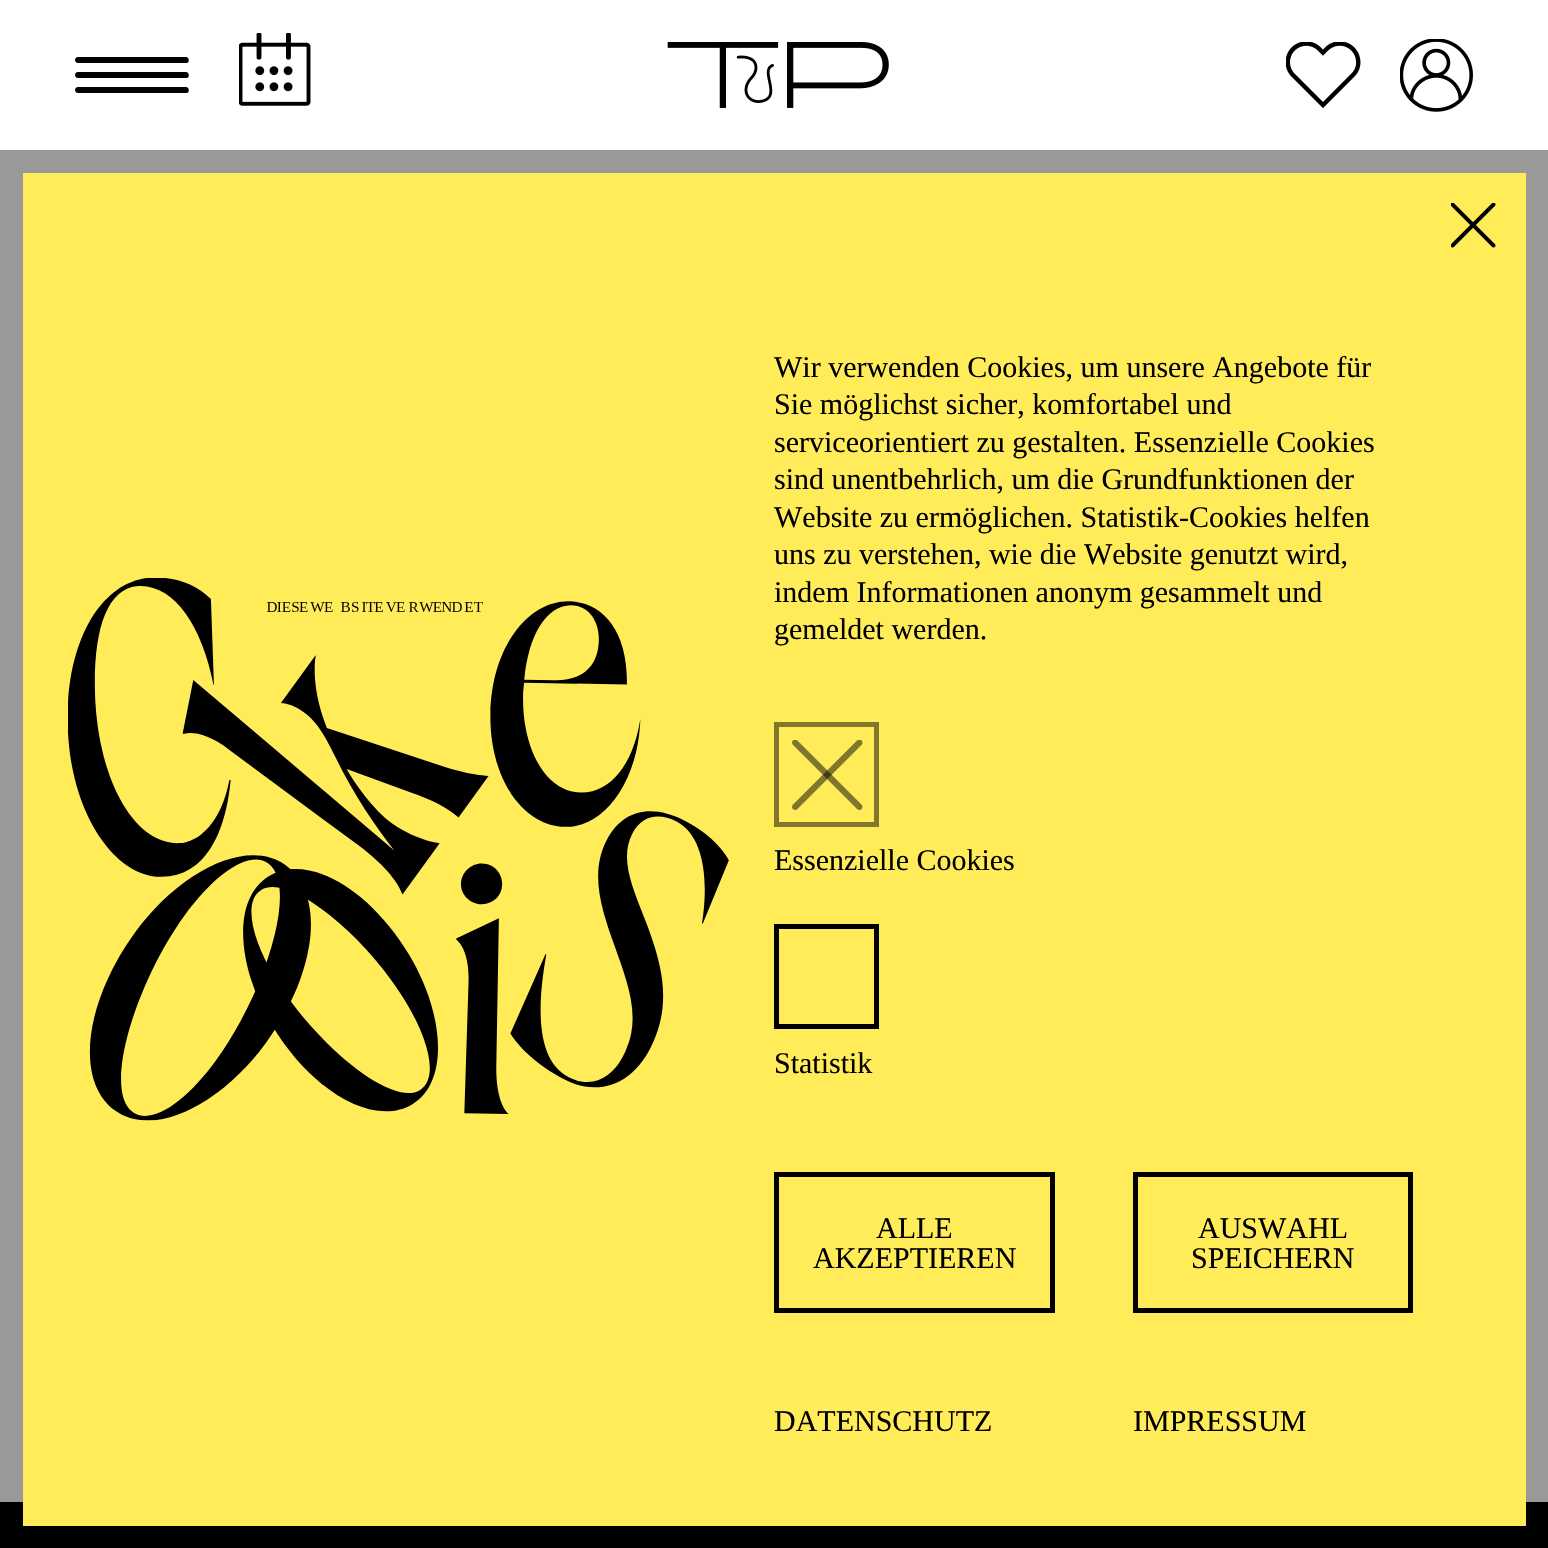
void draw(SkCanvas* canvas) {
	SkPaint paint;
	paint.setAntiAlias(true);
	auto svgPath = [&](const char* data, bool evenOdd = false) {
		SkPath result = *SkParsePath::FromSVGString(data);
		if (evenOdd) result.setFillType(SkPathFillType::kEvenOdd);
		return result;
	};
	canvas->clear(0xffffffff);
	paint.setColor(0xff000000);
	canvas->drawPath(svgPath("M78 57H186C189 57 190 62 187 63H78C74 63 74 57 78 57Z"), paint);
	canvas->drawPath(svgPath("M78 87H186C189 87 190 92 187 93H78C74 93 74 87 78 87Z"), paint);
	canvas->drawPath(svgPath("M78 72H186C189 72 190 77 187 78H78C74 78 74 72 78 72Z"), paint);
	canvas->drawImageRect(SkImages::DeferredFromEncodedData(SkData::MakeFromFileName("img1.png")), SkRect::MakeXYWH(239, 33, 72, 73), SkSamplingOptions());
	canvas->drawImageRect(SkImages::DeferredFromEncodedData(SkData::MakeFromFileName("img2.png")), SkRect::MakeXYWH(667, 42, 222, 66), SkSamplingOptions());
	canvas->drawImageRect(SkImages::DeferredFromEncodedData(SkData::MakeFromFileName("img3.png")), SkRect::MakeXYWH(1286, 42, 75, 66), SkSamplingOptions());
	canvas->drawImageRect(SkImages::DeferredFromEncodedData(SkData::MakeFromFileName("img4.png")), SkRect::MakeXYWH(1400, 39, 73, 73), SkSamplingOptions());
	paint.setColor(0x66000000);
	canvas->drawRect(SkRect::MakeXYWH(0, 150, 1548, 1352), paint);
	paint.setColor(0xff000000);
	canvas->drawRect(SkRect::MakeXYWH(0, 1502, 1548, 46), paint);
	paint.setColor(0xffffec58);
	canvas->drawRect(SkRect::MakeXYWH(23, 173, 1503, 1353), paint);
	canvas->drawImageRect(SkImages::DeferredFromEncodedData(SkData::MakeFromFileName("img5.png")), SkRect::MakeXYWH(1451, 203, 45, 45), SkSamplingOptions());
	canvas->drawImageRect(SkImages::DeferredFromEncodedData(SkData::MakeFromFileName("img6.png")), SkRect::MakeXYWH(68, 578, 661, 543), SkSamplingOptions());
	SkFont f1(fontMgr->matchFamilyStyle("Liberation Serif", SkFontStyle::Normal()), 30);
	f1.setSubpixel(true);
	paint.setColor(0xff000000);
	canvas->drawString("Wir verwenden Cookies, um unsere Angebote für", 774, 377, f1, paint);
	canvas->drawString("Sie möglichst sicher, komfortabel und", 774, 414, f1, paint);
	canvas->drawString("serviceorientiert zu gestalten. Essenzielle Cookies", 774, 452, f1, paint);
	canvas->drawString("sind unentbehrlich, um die Grundfunktionen der", 774, 489, f1, paint);
	canvas->drawString("Website zu ermöglichen. Statistik-Cookies helfen", 774, 527, f1, paint);
	canvas->drawString("uns zu verstehen, wie die Website genutzt wird,", 774, 564, f1, paint);
	canvas->drawString("indem Informationen anonym gesammelt und", 774, 602, f1, paint);
	canvas->drawString("gemeldet werden.", 774, 639, f1, paint);
	paint.setStroke(true);
	paint.setStrokeWidth(5);
	paint.setColor(0xff80762c);
	canvas->drawRect(SkRect::MakeXYWH(776.5, 724.5, 100, 100), paint);
	canvas->drawImageRect(SkImages::DeferredFromEncodedData(SkData::MakeFromFileName("img7.png")), SkRect::MakeXYWH(792, 740, 71, 70), SkSamplingOptions());
	paint.setStroke(false);
	paint.setColor(0xff000000);
	canvas->drawString("Essenzielle Cookies", 774, 870, f1, paint);
	paint.setStroke(true);
	canvas->drawRect(SkRect::MakeXYWH(776.5, 926.5, 100, 100), paint);
	paint.setStroke(false);
	canvas->drawString("Statistik", 774, 1073, f1, paint);
	paint.setStroke(true);
	canvas->drawRect(SkRect::MakeXYWH(776.5, 1174.5, 276, 136), paint);
	paint.setStroke(false);
	canvas->drawString("ALLE", 876, 1238, f1, paint);
	canvas->drawString("AKZEPTIEREN", 813, 1268, f1, paint);
	paint.setStroke(true);
	canvas->drawRect(SkRect::MakeXYWH(1135.5, 1174.5, 275, 136), paint);
	paint.setStroke(false);
	canvas->drawString("AUSWAHL", 1198, 1238, f1, paint);
	canvas->drawString("SPEICHERN", 1191, 1268, f1, paint);
	canvas->drawString("DATENSCHUTZ", 774, 1431, f1, paint);
	canvas->drawString("IMPRESSUM", 1133, 1431, f1, paint);
}
